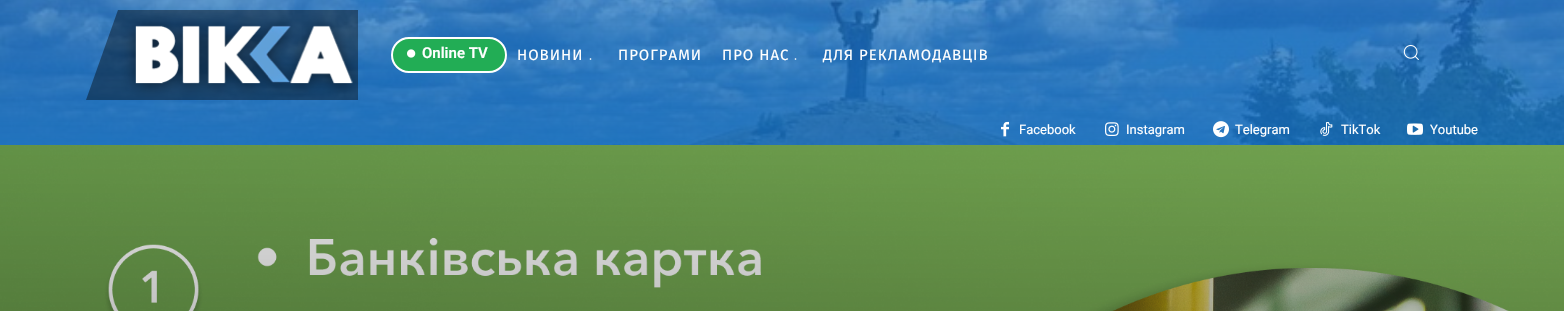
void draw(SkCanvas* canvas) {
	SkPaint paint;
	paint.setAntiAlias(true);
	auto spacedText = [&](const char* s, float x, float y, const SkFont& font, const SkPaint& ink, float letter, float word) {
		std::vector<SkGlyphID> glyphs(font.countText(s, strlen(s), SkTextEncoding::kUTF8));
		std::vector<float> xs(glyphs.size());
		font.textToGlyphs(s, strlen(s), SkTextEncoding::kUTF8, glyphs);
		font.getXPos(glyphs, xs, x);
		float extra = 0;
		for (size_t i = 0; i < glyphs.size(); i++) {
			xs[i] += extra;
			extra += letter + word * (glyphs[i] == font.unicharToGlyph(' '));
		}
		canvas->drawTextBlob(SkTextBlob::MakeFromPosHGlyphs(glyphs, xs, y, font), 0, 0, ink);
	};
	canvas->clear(0xffffffff);
	canvas->drawImageRect(SkImages::DeferredFromEncodedData(SkData::MakeFromFileName("img1.png")), SkRect::MakeXYWH(0, 0, 1564, 145), SkSamplingOptions());
	canvas->drawImageRect(SkImages::DeferredFromEncodedData(SkData::MakeFromFileName("img2.png")), SkRect::MakeXYWH(86, 10, 272, 90), SkSamplingOptions());
	paint.setColor(0xff22ad55);
	canvas->drawRoundRect(SkRect::MakeXYWH(392, 38, 114, 34), 17, 17, paint);
	paint.setStroke(true);
	paint.setStrokeWidth(2);
	paint.setColor(0xffffffff);
	canvas->drawRoundRect(SkRect::MakeXYWH(392, 38, 114, 34), 17, 17, paint);
	canvas->drawImageRect(SkImages::DeferredFromEncodedData(SkData::MakeFromFileName("img3.png")), SkRect::MakeXYWH(407, 49, 9, 9), SkSamplingOptions());
	SkFont f1(fontMgr->matchFamilyStyle("Roboto", SkFontStyle(600, SkFontStyle::kNormal_Width, SkFontStyle::kUpright_Slant)), 15);
	f1.setSubpixel(true);
	paint.setStroke(false);
	canvas->drawString("Online TV", 422, 58, f1, paint);
	SkFont f2(fontMgr->matchFamilyStyle("Fira Sans", SkFontStyle::Normal()), 15);
	f2.setSubpixel(true);
	spacedText("НОВИНИ", 517, 60, f2, paint, 1, 0);
	canvas->drawImageRect(SkImages::DeferredFromEncodedData(SkData::MakeFromFileName("img4.png")), SkRect::MakeXYWH(589, 58, 3, 2), SkSamplingOptions());
	spacedText("ПРОГРАМИ", 618, 60, f2, paint, 1, 0);
	spacedText("ПРО НАС", 722, 60, f2, paint, 1, 0);
	canvas->drawImageRect(SkImages::DeferredFromEncodedData(SkData::MakeFromFileName("img5.png")), SkRect::MakeXYWH(794, 58, 3, 2), SkSamplingOptions());
	spacedText("ДЛЯ РЕКЛАМОДАВЦІВ", 823, 60, f2, paint, 1, 0);
	canvas->drawImageRect(SkImages::DeferredFromEncodedData(SkData::MakeFromFileName("img6.png")), SkRect::MakeXYWH(1403, 45, 16, 15), SkSamplingOptions());
	canvas->drawImageRect(SkImages::DeferredFromEncodedData(SkData::MakeFromFileName("img7.png")), SkRect::MakeXYWH(1001, 121, 8, 16), SkSamplingOptions());
	SkFont f3(fontMgr->matchFamilyStyle("Roboto", SkFontStyle::Normal()), 13);
	f3.setSubpixel(true);
	canvas->drawString("Facebook", 1019, 134, f3, paint);
	canvas->drawImageRect(SkImages::DeferredFromEncodedData(SkData::MakeFromFileName("img8.png")), SkRect::MakeXYWH(1105, 122, 14, 14), SkSamplingOptions());
	canvas->drawString("Instagram", 1126, 134, f3, paint);
	canvas->drawImageRect(SkImages::DeferredFromEncodedData(SkData::MakeFromFileName("img9.png")), SkRect::MakeXYWH(1213, 121, 16, 17), SkSamplingOptions());
	canvas->drawString("Telegram", 1235, 134, f3, paint);
	canvas->drawImageRect(SkImages::DeferredFromEncodedData(SkData::MakeFromFileName("img10.png")), SkRect::MakeXYWH(1320, 122, 13, 14), SkSamplingOptions());
	canvas->drawString("TikTok", 1341, 134, f3, paint);
	canvas->drawImageRect(SkImages::DeferredFromEncodedData(SkData::MakeFromFileName("img11.png")), SkRect::MakeXYWH(1407, 123, 16, 12), SkSamplingOptions());
	canvas->drawString("Youtube", 1430, 134, f3, paint);
	canvas->drawImageRect(SkImages::DeferredFromEncodedData(SkData::MakeFromFileName("img12.png")), SkRect::MakeXYWH(0, 145, 1564, 166), SkSamplingOptions());
}
